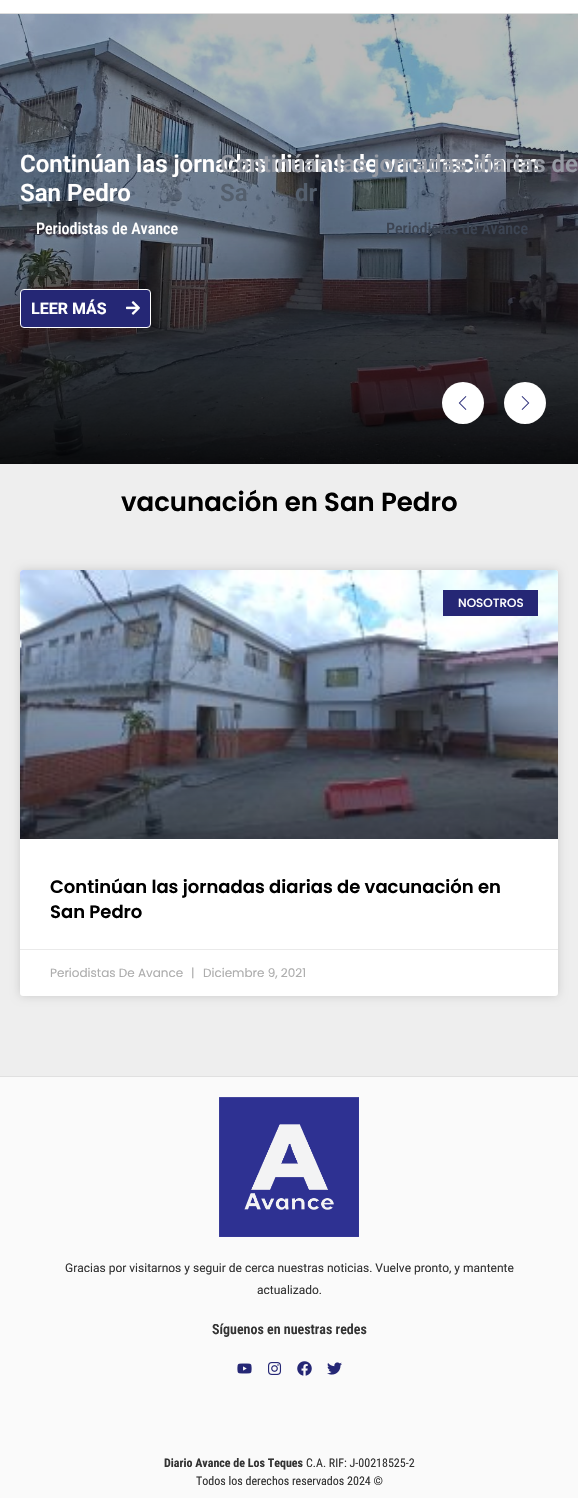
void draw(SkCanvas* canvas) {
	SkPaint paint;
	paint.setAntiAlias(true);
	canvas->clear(0xffeeeeee);
	paint.setColor(0xffffffff);
	canvas->drawRect(SkRect::MakeXYWH(0, 0, 578, 13), paint);
	paint.setColor(0xffdddddd);
	canvas->drawRect(SkRect::MakeXYWH(0, 13, 578, 1), paint);
	canvas->drawImageRect(SkImages::DeferredFromEncodedData(SkData::MakeFromFileName("img3.png")), SkRect::MakeXYWH(577, 14, 1, 450), SkSamplingOptions());
	canvas->drawImageRect(SkImages::DeferredFromEncodedData(SkData::MakeFromFileName("img1.png")), SkRect::MakeXYWH(0, 14, 578, 450), SkSamplingOptions());
	{
		const SkColor colors[] = {0x47050404, 0xe0000000};
		const float stops[] = {0.5, 1};
		const SkPoint ends[] = {{289, 14}, {289, 464}};
		paint.setShader(SkGradientShader::MakeLinear(ends, colors, stops, 2, SkTileMode::kClamp));
		paint.setAlpha(255);
	}
	canvas->drawRect(SkRect::MakeXYWH(0, 14, 578, 450), paint);
	SkFont f1(fontMgr->matchFamilyStyle("Roboto", SkFontStyle(600, SkFontStyle::kNormal_Width, SkFontStyle::kUpright_Slant)), 24);
	f1.setSubpixel(true);
	paint.setShader(nullptr);
	paint.setColor(0xffffffff);
	canvas->drawString("Continúan las jornadas diarias de vacunación en", 20, 172, f1, paint);
	canvas->drawString("San Pedro", 20, 201, f1, paint);
	SkFont f2(fontMgr->matchFamilyStyle("Roboto Condensed", SkFontStyle(500, SkFontStyle::kNormal_Width, SkFontStyle::kUpright_Slant)), 16);
	f2.setSubpixel(true);
	canvas->drawString("Periodistas de Avance", 36, 234, f2, paint);
	paint.setColor(0xff252775);
	canvas->drawRoundRect(SkRect::MakeXYWH(20.5, 289.5, 130, 38), 3.5, 3.5, paint);
	paint.setStroke(true);
	paint.setStrokeWidth(1);
	paint.setColor(0xffffffff);
	canvas->drawRoundRect(SkRect::MakeXYWH(20.5, 289.5, 130, 38), 3.5, 3.5, paint);
	SkFont f3(fontMgr->matchFamilyStyle("Roboto", SkFontStyle::Bold()), 16);
	f3.setSubpixel(true);
	paint.setStroke(false);
	canvas->drawString("LEER MÁS", 31, 314, f3, paint);
	canvas->drawImageRect(SkImages::DeferredFromEncodedData(SkData::MakeFromFileName("img2.png")), SkRect::MakeXYWH(126, 301, 14, 14), SkSamplingOptions());
	paint.setColor(0xff969aa3);
	canvas->drawString("Continúan las jornadas diarias de", 220, 172, f1, paint);
	paint.setColor(0xff545f6d);
	canvas->drawString("Sa", 220, 201, f1, paint);
	canvas->drawString("dr", 295, 201, f1, paint);
	paint.setColor(0xff3c4452);
	canvas->drawString("Periodistas de Avance", 386, 234, f2, paint);
	paint.setColor(0xffffffff);
	canvas->drawCircle(463, 403, 21, paint);
	canvas->drawImageRect(SkImages::DeferredFromEncodedData(SkData::MakeFromFileName("img4.png")), SkRect::MakeXYWH(458, 396, 9, 14), SkSamplingOptions());
	canvas->drawCircle(525, 403, 21, paint);
	canvas->drawImageRect(SkImages::DeferredFromEncodedData(SkData::MakeFromFileName("img5.png")), SkRect::MakeXYWH(521, 396, 9, 14), SkSamplingOptions());
	SkFont f4(fontMgr->matchFamilyStyle("Poppins", SkFontStyle(600, SkFontStyle::kNormal_Width, SkFontStyle::kUpright_Slant)), 26);
	f4.setSubpixel(true);
	paint.setColor(0xff000000);
	canvas->drawString("vacunación en San Pedro", 121, 511, f4, paint);
	paint.setColor(0x26000000);
	paint.setMaskFilter(SkMaskFilter::MakeBlur(kNormal_SkBlurStyle, 5));
	canvas->drawRoundRect(SkRect::MakeXYWH(20, 570, 538, 426), 3, 3, paint);
	paint.setMaskFilter(nullptr);
	paint.setColor(0xffffffff);
	canvas->drawRoundRect(SkRect::MakeXYWH(20, 570, 538, 426), 3, 3, paint);
	canvas->drawImageRect(SkImages::DeferredFromEncodedData(SkData::MakeFromFileName("img6.png")), SkRect::MakeXYWH(20, 570, 538, 269), SkSamplingOptions());
	{
		const SkColor colors[] = {0x59000000, 0x00000000};
		const float stops[] = {0, 0.75};
		const SkPoint ends[] = {{289, 839}, {289, 570}};
		paint.setShader(SkGradientShader::MakeLinear(ends, colors, stops, 2, SkTileMode::kClamp));
		paint.setAlpha(255);
	}
	canvas->drawRect(SkRect::MakeXYWH(20, 650, 538, 189), paint);
	paint.setShader(nullptr);
	paint.setColor(0xff252775);
	canvas->drawRect(SkRect::MakeXYWH(443, 590, 95, 26), paint);
	SkFont f5(fontMgr->matchFamilyStyle("Poppins", SkFontStyle(500, SkFontStyle::kNormal_Width, SkFontStyle::kUpright_Slant)), 12);
	f5.setSubpixel(true);
	paint.setColor(0xffffffff);
	canvas->drawString("NOSOTROS", 458, 607, f5, paint);
	SkFont f6(fontMgr->matchFamilyStyle("Poppins", SkFontStyle(600, SkFontStyle::kNormal_Width, SkFontStyle::kUpright_Slant)), 18);
	f6.setSubpixel(true);
	paint.setColor(0xff000000);
	canvas->drawString("Continúan las jornadas diarias de vacunación en", 50, 893, f6, paint);
	canvas->drawString("San Pedro", 50, 918, f6, paint);
	paint.setColor(0xffeaeaea);
	canvas->drawRect(SkRect::MakeXYWH(20, 949, 538, 1), paint);
	SkFont f7(fontMgr->matchFamilyStyle("Poppins", SkFontStyle::Normal()), 12);
	f7.setSubpixel(true);
	paint.setColor(0xffadadad);
	canvas->drawString("Periodistas De Avance", 50, 977, f7, paint);
	canvas->drawString("|", 191, 977, f7, paint);
	canvas->drawString("Diciembre 9, 2021", 203, 977, f7, paint);
	paint.setColor(0xfffafafa);
	canvas->drawRect(SkRect::MakeXYWH(0, 1077, 578, 421), paint);
	paint.setColor(0xffe0e0e0);
	canvas->drawRect(SkRect::MakeXYWH(0, 1076, 578, 1), paint);
	canvas->drawImageRect(SkImages::DeferredFromEncodedData(SkData::MakeFromFileName("img7.png")), SkRect::MakeXYWH(219, 1097, 140, 140), SkSamplingOptions());
	SkFont f8(fontMgr->matchFamilyStyle("Roboto", SkFontStyle::Normal()), 12);
	f8.setSubpixel(true);
	paint.setColor(0xff333333);
	canvas->drawString("Gracias por visitarnos y seguir de cerca nuestras noticias. Vuelve pronto, y mantente", 65, 1272, f8, paint);
	canvas->drawString("actualizado.", 257, 1294, f8, paint);
	SkFont f9(fontMgr->matchFamilyStyle("Roboto Condensed", SkFontStyle(600, SkFontStyle::kNormal_Width, SkFontStyle::kUpright_Slant)), 14);
	f9.setSubpixel(true);
	canvas->drawString("Síguenos en nuestras redes", 212, 1334, f9, paint);
	canvas->drawImageRect(SkImages::DeferredFromEncodedData(SkData::MakeFromFileName("img8.png")), SkRect::MakeXYWH(237, 1363, 15, 11), SkSamplingOptions());
	canvas->drawImageRect(SkImages::DeferredFromEncodedData(SkData::MakeFromFileName("img9.png")), SkRect::MakeXYWH(268, 1362, 14, 13), SkSamplingOptions());
	canvas->drawImageRect(SkImages::DeferredFromEncodedData(SkData::MakeFromFileName("img10.png")), SkRect::MakeXYWH(297, 1361, 15, 15), SkSamplingOptions());
	canvas->drawImageRect(SkImages::DeferredFromEncodedData(SkData::MakeFromFileName("img11.png")), SkRect::MakeXYWH(327, 1362, 15, 13), SkSamplingOptions());
	SkFont f10(fontMgr->matchFamilyStyle("Roboto Condensed", SkFontStyle::Bold()), 12);
	f10.setSubpixel(true);
	canvas->drawString("Diario Avance de Los Teques", 164, 1467, f10, paint);
	SkFont f11(fontMgr->matchFamilyStyle("Roboto Condensed", SkFontStyle::Normal()), 12);
	f11.setSubpixel(true);
	canvas->drawString("C.A. RIF: J-00218525-2", 306, 1467, f11, paint);
	canvas->drawString("Todos los derechos reservados 2024 ©", 196, 1485, f11, paint);
}
